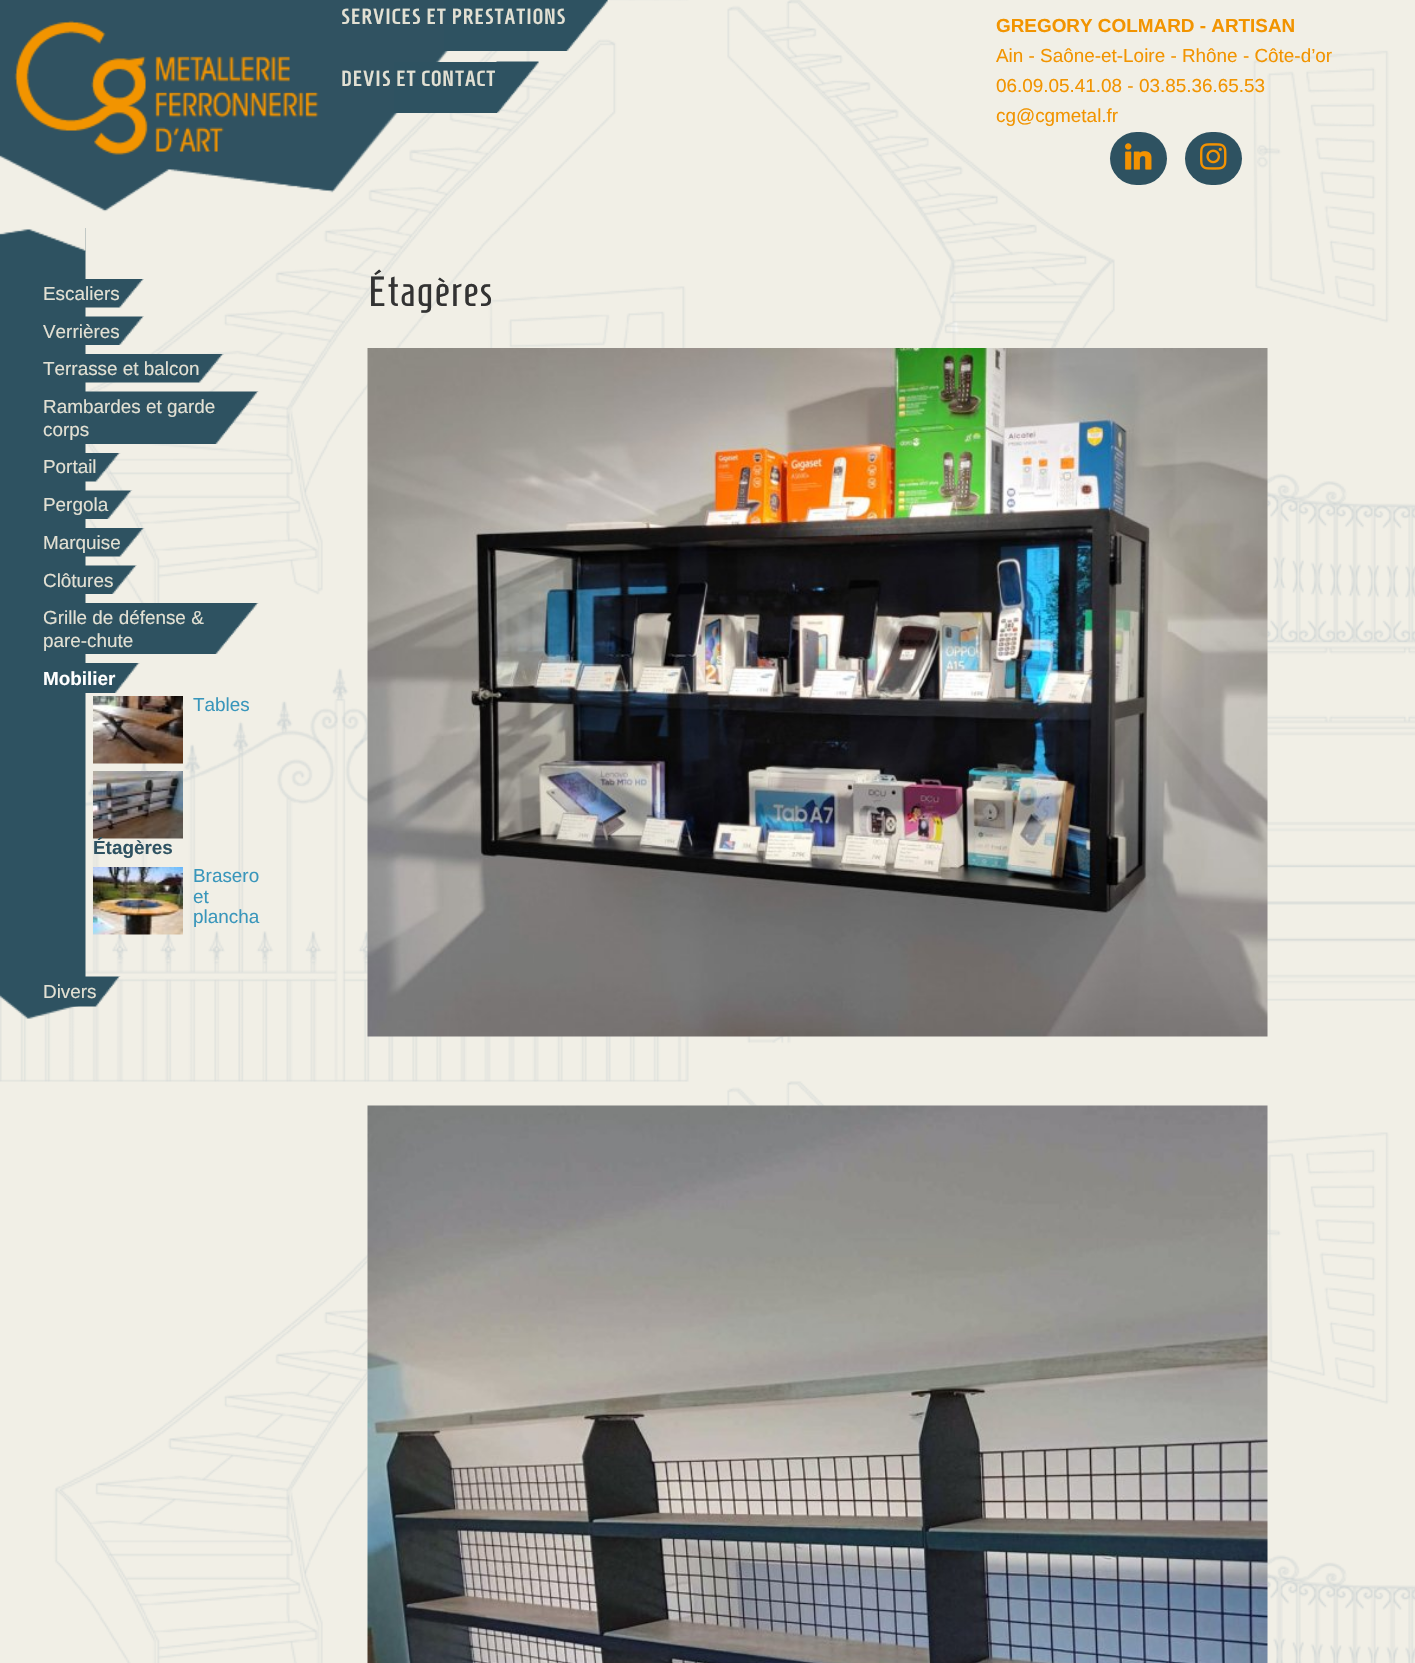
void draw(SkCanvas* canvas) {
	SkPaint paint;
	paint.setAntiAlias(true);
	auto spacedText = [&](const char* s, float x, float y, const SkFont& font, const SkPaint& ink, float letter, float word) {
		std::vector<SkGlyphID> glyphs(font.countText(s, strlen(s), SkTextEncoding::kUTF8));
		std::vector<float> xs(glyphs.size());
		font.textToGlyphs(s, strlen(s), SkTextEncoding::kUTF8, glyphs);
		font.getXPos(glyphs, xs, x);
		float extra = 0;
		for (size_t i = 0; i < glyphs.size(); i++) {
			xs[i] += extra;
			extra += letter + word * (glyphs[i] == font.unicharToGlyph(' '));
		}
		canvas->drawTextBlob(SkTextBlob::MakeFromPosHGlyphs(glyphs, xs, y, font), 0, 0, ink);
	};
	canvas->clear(0xfff1efe6);
	canvas->drawImageRect(SkImages::DeferredFromEncodedData(SkData::MakeFromFileName("img1.png")), SkRect::MakeXYWH(0, 0, 1415, 1663), SkSamplingOptions());
	canvas->drawImageRect(SkImages::DeferredFromEncodedData(SkData::MakeFromFileName("img2.png")), SkRect::MakeXYWH(0, 0, 449, 212), SkSamplingOptions());
	canvas->drawImageRect(SkImages::DeferredFromEncodedData(SkData::MakeFromFileName("img3.png")), SkRect::MakeXYWH(566, 0, 42, 51), SkSamplingOptions());
	paint.setColor(0xff2e5261);
	canvas->drawRect(SkRect::MakeXYWH(444, 0, 122, 51), paint);
	SkFont f1(fontMgr->matchFamilyStyle("Homenaje", SkFontStyle::Bold()), 21);
	f1.setSubpixel(true);
	paint.setColor(0xffe2e0d3);
	spacedText("SERVICES ET PRESTATIONS", 341, 24, f1, paint, 1.5, 0);
	canvas->drawImageRect(SkImages::DeferredFromEncodedData(SkData::MakeFromFileName("img4.png")), SkRect::MakeXYWH(496, 61, 43, 52), SkSamplingOptions());
	paint.setColor(0xff2e5261);
	canvas->drawRect(SkRect::MakeXYWH(394, 62, 103, 51), paint);
	paint.setColor(0xffe2e0d3);
	spacedText("DEVIS ET CONTACT", 341, 86, f1, paint, 1.5, 0);
	SkFont f2(fontMgr->matchFamilyStyle("Liberation Sans", SkFontStyle::Bold()), 18.9);
	f2.setSubpixel(true);
	paint.setColor(0xfff29400);
	canvas->drawString("GREGORY COLMARD - ARTISAN", 996, 32, f2, paint);
	SkFont f3(fontMgr->matchFamilyStyle("Liberation Sans", SkFontStyle::Normal()), 18.9);
	f3.setSubpixel(true);
	canvas->drawString("Ain - Saône-et-Loire - Rhône - Côte-d’or", 996, 62, f3, paint);
	canvas->drawString("06.09.05.41.08 - 03.85.36.65.53", 996, 92, f3, paint);
	canvas->drawString("cg@cgmetal.fr", 996, 122, f3, paint);
	paint.setColor(0xff2e5261);
	canvas->drawRoundRect(SkRect::MakeXYWH(1110, 132, 57, 53), 26.5, 26.5, paint);
	canvas->drawImageRect(SkImages::DeferredFromEncodedData(SkData::MakeFromFileName("img5.png")), SkRect::MakeXYWH(1125, 143, 27, 27), SkSamplingOptions());
	canvas->drawRoundRect(SkRect::MakeXYWH(1185, 132, 57, 53), 26.5, 26.5, paint);
	canvas->drawImageRect(SkImages::DeferredFromEncodedData(SkData::MakeFromFileName("img6.png")), SkRect::MakeXYWH(1200, 143, 27, 27), SkSamplingOptions());
	canvas->drawImageRect(SkImages::DeferredFromEncodedData(SkData::MakeFromFileName("img7.png")), SkRect::MakeXYWH(0, 228, 86, 791), SkSamplingOptions());
	canvas->drawImageRect(SkImages::DeferredFromEncodedData(SkData::MakeFromFileName("img8.png")), SkRect::MakeXYWH(85, 279, 59, 29), SkSamplingOptions());
	paint.setColor(0xffe2e0d3);
	canvas->drawString("Escaliers", 43, 300, f3, paint);
	canvas->drawImageRect(SkImages::DeferredFromEncodedData(SkData::MakeFromFileName("img9.png")), SkRect::MakeXYWH(85, 316, 59, 29), SkSamplingOptions());
	canvas->drawString("Verrières", 43, 338, f3, paint);
	canvas->drawImageRect(SkImages::DeferredFromEncodedData(SkData::MakeFromFileName("img10.png")), SkRect::MakeXYWH(85, 354, 139, 29), SkSamplingOptions());
	canvas->drawString("Terrasse et balcon", 43, 375, f3, paint);
	canvas->drawImageRect(SkImages::DeferredFromEncodedData(SkData::MakeFromFileName("img11.png")), SkRect::MakeXYWH(85, 391, 174, 53), SkSamplingOptions());
	canvas->drawString("Rambardes et garde", 43, 413, f3, paint);
	canvas->drawString("corps", 43, 436, f3, paint);
	canvas->drawImageRect(SkImages::DeferredFromEncodedData(SkData::MakeFromFileName("img12.png")), SkRect::MakeXYWH(85, 453, 36, 29), SkSamplingOptions());
	canvas->drawString("Portail", 43, 473, f3, paint);
	canvas->drawImageRect(SkImages::DeferredFromEncodedData(SkData::MakeFromFileName("img13.png")), SkRect::MakeXYWH(85, 490, 48, 29), SkSamplingOptions());
	canvas->drawString("Pergola", 43, 511, f3, paint);
	canvas->drawImageRect(SkImages::DeferredFromEncodedData(SkData::MakeFromFileName("img14.png")), SkRect::MakeXYWH(85, 528, 60, 29), SkSamplingOptions());
	canvas->drawString("Marquise", 43, 549, f3, paint);
	canvas->drawImageRect(SkImages::DeferredFromEncodedData(SkData::MakeFromFileName("img15.png")), SkRect::MakeXYWH(85, 565, 52, 29), SkSamplingOptions());
	canvas->drawString("Clôtures", 43, 587, f3, paint);
	canvas->drawImageRect(SkImages::DeferredFromEncodedData(SkData::MakeFromFileName("img16.png")), SkRect::MakeXYWH(85, 603, 174, 51), SkSamplingOptions());
	canvas->drawString("Grille de défense &", 43, 624, f3, paint);
	canvas->drawString("pare-chute", 43, 647, f3, paint);
	canvas->drawImageRect(SkImages::DeferredFromEncodedData(SkData::MakeFromFileName("img17.png")), SkRect::MakeXYWH(85, 663, 55, 30), SkSamplingOptions());
	paint.setColor(0xffffffff);
	canvas->drawString("Mobilier", 43, 685, f2, paint);
	canvas->drawImageRect(SkImages::DeferredFromEncodedData(SkData::MakeFromFileName("img18.png")), SkRect::MakeXYWH(93, 696, 90, 68), SkSamplingOptions());
	paint.setColor(0xff3996bb);
	canvas->drawString("Tables", 193, 711, f3, paint);
	canvas->drawImageRect(SkImages::DeferredFromEncodedData(SkData::MakeFromFileName("img19.png")), SkRect::MakeXYWH(93, 771, 90, 68), SkSamplingOptions());
	paint.setColor(0xff2e5261);
	canvas->drawString("Étagères", 93, 854, f2, paint);
	canvas->drawImageRect(SkImages::DeferredFromEncodedData(SkData::MakeFromFileName("img20.png")), SkRect::MakeXYWH(93, 867, 90, 68), SkSamplingOptions());
	paint.setColor(0xff3996bb);
	canvas->drawString("Brasero", 193, 882, f3, paint);
	canvas->drawString("et", 193, 903, f3, paint);
	canvas->drawString("plancha", 193, 923, f3, paint);
	canvas->drawImageRect(SkImages::DeferredFromEncodedData(SkData::MakeFromFileName("img21.png")), SkRect::MakeXYWH(68, 976, 53, 31), SkSamplingOptions());
	paint.setColor(0xffe2e0d3);
	canvas->drawString("Divers", 43, 998, f3, paint);
	SkFont f4(fontMgr->matchFamilyStyle("Homenaje", SkFontStyle::Normal()), 42);
	f4.setSubpixel(true);
	paint.setColor(0xff333333);
	spacedText("Étagères", 368, 306, f4, paint, 1.5, 0);
	canvas->drawImageRect(SkImages::DeferredFromEncodedData(SkData::MakeFromFileName("img22.png")), SkRect::MakeXYWH(367, 348, 901, 689), SkSamplingOptions());
	canvas->drawImageRect(SkImages::DeferredFromEncodedData(SkData::MakeFromFileName("img23.png")), SkRect::MakeXYWH(367, 1105, 901, 558), SkSamplingOptions());
}
